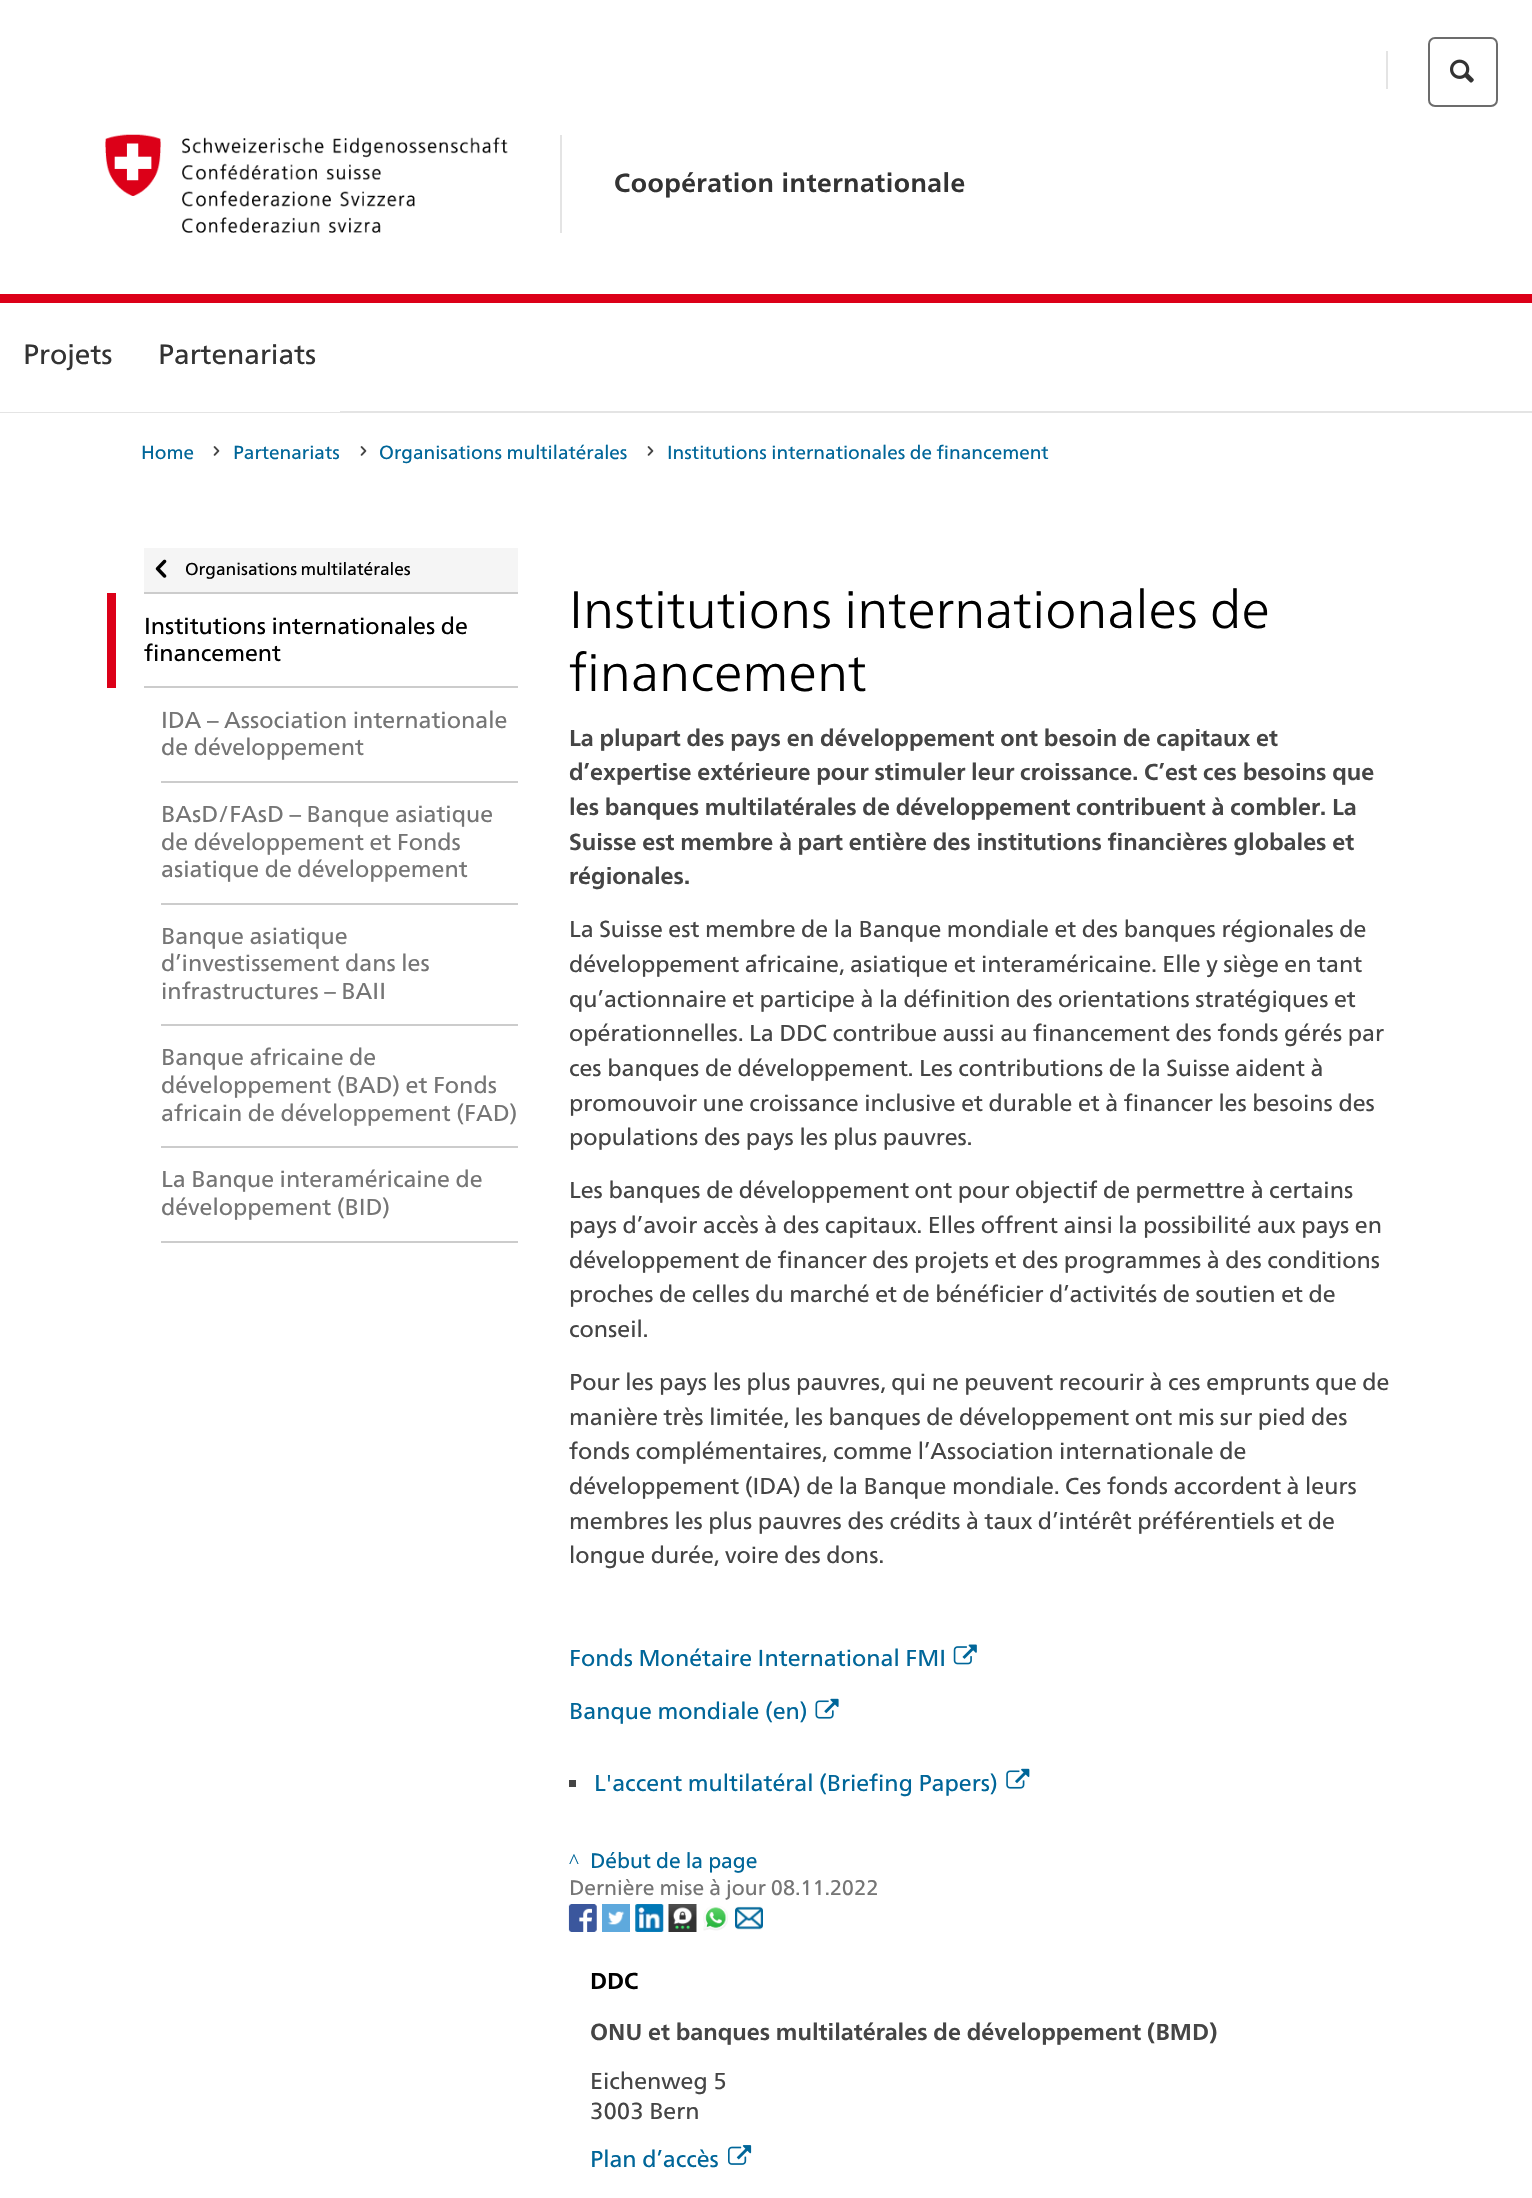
void draw(SkCanvas* canvas) {
	SkPaint paint;
	paint.setAntiAlias(true);
	auto spacedText = [&](const char* s, float x, float y, const SkFont& font, const SkPaint& ink, float letter, float word) {
		std::vector<SkGlyphID> glyphs(font.countText(s, strlen(s), SkTextEncoding::kUTF8));
		std::vector<float> xs(glyphs.size());
		font.textToGlyphs(s, strlen(s), SkTextEncoding::kUTF8, glyphs);
		font.getXPos(glyphs, xs, x);
		float extra = 0;
		for (size_t i = 0; i < glyphs.size(); i++) {
			xs[i] += extra;
			extra += letter + word * (glyphs[i] == font.unicharToGlyph(' '));
		}
		canvas->drawTextBlob(SkTextBlob::MakeFromPosHGlyphs(glyphs, xs, y, font), 0, 0, ink);
	};
	canvas->clear(0xffffffff);
	paint.setColor(0xffe4e4e4);
	canvas->drawRect(SkRect::MakeXYWH(0, 411, 1532, 2), paint);
	paint.setColor(0xffdc0018);
	canvas->drawRect(SkRect::MakeXYWH(0, 294, 1532, 9), paint);
	paint.setColor(0xffe4e4e4);
	canvas->drawRect(SkRect::MakeXYWH(1386, 51, 2, 38), paint);
	paint.setStroke(true);
	paint.setStrokeWidth(2);
	paint.setColor(0xff6c6c6c);
	canvas->drawRoundRect(SkRect::MakeXYWH(1429, 38, 68, 68), 6, 6, paint);
	canvas->drawImageRect(SkImages::DeferredFromEncodedData(SkData::MakeFromFileName("img1.png")), SkRect::MakeXYWH(1450, 59, 24, 24), SkSamplingOptions());
	paint.setStroke(false);
	paint.setColor(0xffe4e4e4);
	canvas->drawRect(SkRect::MakeXYWH(560, 135, 2, 98), paint);
	canvas->drawImageRect(SkImages::DeferredFromEncodedData(SkData::MakeFromFileName("img2.png")), SkRect::MakeXYWH(105, 134, 403, 99), SkSamplingOptions());
	SkFont f1(fontMgr->matchFamilyStyle("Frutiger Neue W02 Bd", SkFontStyle::Bold()), 26.25);
	f1.setSubpixel(true);
	paint.setColor(0xff333333);
	spacedText("Coopération internationale", 614, 192, f1, paint, 0.45, 0);
	paint.setColor(0xffffffff);
	canvas->drawRect(SkRect::MakeXYWH(0, 411, 340, 1), paint);
	SkFont f2(fontMgr->matchFamilyStyle("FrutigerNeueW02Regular", SkFontStyle::Normal()), 28);
	f2.setSubpixel(true);
	paint.setColor(0xff333333);
	canvas->drawString("Projets", 23, 364, f2, paint);
	canvas->drawString("Partenariats", 158, 364, f2, paint);
	SkFont f3(fontMgr->matchFamilyStyle("FrutigerNeueW02Regular", SkFontStyle::Normal()), 18.9);
	f3.setSubpixel(true);
	paint.setColor(0xff006699);
	canvas->drawString("Home", 141, 459, f3, paint);
	canvas->drawImageRect(SkImages::DeferredFromEncodedData(SkData::MakeFromFileName("img3.png")), SkRect::MakeXYWH(213, 446, 7, 10), SkSamplingOptions());
	canvas->drawString("Partenariats", 233, 459, f3, paint);
	canvas->drawImageRect(SkImages::DeferredFromEncodedData(SkData::MakeFromFileName("img3.png")), SkRect::MakeXYWH(360, 446, 7, 10), SkSamplingOptions());
	canvas->drawString("Organisations multilatérales", 379, 459, f3, paint);
	canvas->drawImageRect(SkImages::DeferredFromEncodedData(SkData::MakeFromFileName("img3.png")), SkRect::MakeXYWH(647, 446, 7, 10), SkSamplingOptions());
	canvas->drawString("Institutions internationales de financement", 667, 459, f3, paint);
	paint.setColor(0xfff5f5f5);
	canvas->drawRect(SkRect::MakeXYWH(144, 548, 374, 44), paint);
	paint.setColor(0xffcccccc);
	canvas->drawRect(SkRect::MakeXYWH(144, 592, 374, 2), paint);
	canvas->drawImageRect(SkImages::DeferredFromEncodedData(SkData::MakeFromFileName("img4.png")), SkRect::MakeXYWH(155, 559, 12, 19), SkSamplingOptions());
	SkFont f4(fontMgr->matchFamilyStyle("FrutigerNeueW02Regular", SkFontStyle::Normal()), 17.25);
	f4.setSubpixel(true);
	paint.setColor(0xff000000);
	spacedText("Organisations multilatérales", 185, 575, f4, paint, 0, -1);
	paint.setColor(0xffdc0018);
	canvas->drawRect(SkRect::MakeXYWH(107, 593, 9, 95), paint);
	paint.setColor(0xffcccccc);
	canvas->drawRect(SkRect::MakeXYWH(144, 686, 374, 2), paint);
	SkFont f5(fontMgr->matchFamilyStyle("FrutigerNeueW02Regular", SkFontStyle::Normal()), 23.1);
	f5.setSubpixel(true);
	paint.setColor(0xff000000);
	canvas->drawString("Institutions internationales de", 144, 634, f5, paint);
	canvas->drawString("financement", 144, 661, f5, paint);
	paint.setColor(0xffcccccc);
	canvas->drawRect(SkRect::MakeXYWH(161, 781, 357, 2), paint);
	paint.setColor(0xff757575);
	canvas->drawString("IDA – Association internationale", 161, 728, f5, paint);
	canvas->drawString("de développement", 161, 755, f5, paint);
	paint.setColor(0xffcccccc);
	canvas->drawRect(SkRect::MakeXYWH(161, 903, 357, 2), paint);
	paint.setColor(0xff757575);
	canvas->drawString("BAsD/FAsD – Banque asiatique", 161, 822, f5, paint);
	canvas->drawString("de développement et Fonds", 161, 850, f5, paint);
	canvas->drawString("asiatique de développement", 161, 877, f5, paint);
	paint.setColor(0xffcccccc);
	canvas->drawRect(SkRect::MakeXYWH(161, 1024, 357, 2), paint);
	paint.setColor(0xff757575);
	canvas->drawString("Banque asiatique", 161, 944, f5, paint);
	canvas->drawString("d’investissement dans les", 161, 971, f5, paint);
	canvas->drawString("infrastructures – BAII", 161, 999, f5, paint);
	paint.setColor(0xffcccccc);
	canvas->drawRect(SkRect::MakeXYWH(161, 1146, 357, 2), paint);
	paint.setColor(0xff757575);
	canvas->drawString("Banque africaine de", 161, 1065, f5, paint);
	canvas->drawString("développement (BAD) et Fonds", 161, 1093, f5, paint);
	canvas->drawString("africain de développement (FAD)", 161, 1121, f5, paint);
	paint.setColor(0xffcccccc);
	canvas->drawRect(SkRect::MakeXYWH(161, 1241, 357, 2), paint);
	paint.setColor(0xff757575);
	canvas->drawString("La Banque interaméricaine de", 161, 1187, f5, paint);
	canvas->drawString("développement (BID)", 161, 1215, f5, paint);
	SkFont f6(fontMgr->matchFamilyStyle("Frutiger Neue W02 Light", SkFontStyle(300, SkFontStyle::kNormal_Width, SkFontStyle::kUpright_Slant)), 52.5);
	f6.setSubpixel(true);
	paint.setColor(0xff000000);
	canvas->drawString("Institutions internationales de", 569, 628, f6, paint);
	canvas->drawString("financement", 569, 691, f6, paint);
	SkFont f7(fontMgr->matchFamilyStyle("Frutiger Neue W02 Bd", SkFontStyle::Bold()), 23.1);
	f7.setSubpixel(true);
	paint.setColor(0xff454545);
	canvas->drawString("La plupart des pays en développement ont besoin de capitaux et", 569, 746, f7, paint);
	canvas->drawString("d’expertise extérieure pour stimuler leur croissance. C’est ces besoins que", 569, 780, f7, paint);
	canvas->drawString("les banques multilatérales de développement contribuent à combler. La", 569, 815, f7, paint);
	canvas->drawString("Suisse est membre à part entière des institutions financières globales et", 569, 850, f7, paint);
	canvas->drawString("régionales.", 569, 884, f7, paint);
	canvas->drawString("La Suisse est membre de la Banque mondiale et des banques régionales de", 569, 937, f5, paint);
	canvas->drawString("développement africaine, asiatique et interaméricaine. Elle y siège en tant", 569, 972, f5, paint);
	canvas->drawString("qu’actionnaire et participe à la définition des orientations stratégiques et", 569, 1007, f5, paint);
	canvas->drawString("opérationnelles. La DDC contribue aussi au financement des fonds gérés par", 569, 1041, f5, paint);
	canvas->drawString("ces banques de développement. Les contributions de la Suisse aident à", 569, 1076, f5, paint);
	canvas->drawString("promouvoir une croissance inclusive et durable et à financer les besoins des", 569, 1111, f5, paint);
	canvas->drawString("populations des pays les plus pauvres.", 569, 1145, f5, paint);
	canvas->drawString("Les banques de développement ont pour objectif de permettre à certains", 569, 1198, f5, paint);
	canvas->drawString("pays d’avoir accès à des capitaux. Elles offrent ainsi la possibilité aux pays en", 569, 1233, f5, paint);
	canvas->drawString("développement de financer des projets et des programmes à des conditions", 569, 1268, f5, paint);
	canvas->drawString("proches de celles du marché et de bénéficier d’activités de soutien et de", 569, 1302, f5, paint);
	canvas->drawString("conseil.", 569, 1337, f5, paint);
	canvas->drawString("Pour les pays les plus pauvres, qui ne peuvent recourir à ces emprunts que de", 569, 1390, f5, paint);
	canvas->drawString("manière très limitée, les banques de développement ont mis sur pied des", 569, 1425, f5, paint);
	canvas->drawString("fonds complémentaires, comme l’Association internationale de", 569, 1459, f5, paint);
	canvas->drawString("développement (IDA) de la Banque mondiale. Ces fonds accordent à leurs", 569, 1494, f5, paint);
	canvas->drawString("membres les plus pauvres des crédits à taux d’intérêt préférentiels et de", 569, 1529, f5, paint);
	canvas->drawString("longue durée, voire des dons.", 569, 1563, f5, paint);
	paint.setColor(0xff006699);
	canvas->drawString("Fonds Monétaire International FMI", 569, 1666, f5, paint);
	canvas->drawImageRect(SkImages::DeferredFromEncodedData(SkData::MakeFromFileName("img5.png")), SkRect::MakeXYWH(953, 1644, 24, 21), SkSamplingOptions());
	canvas->drawString("Banque mondiale (en)", 569, 1719, f5, paint);
	canvas->drawImageRect(SkImages::DeferredFromEncodedData(SkData::MakeFromFileName("img6.png")), SkRect::MakeXYWH(815, 1698, 24, 21), SkSamplingOptions());
	paint.setColor(0xff454545);
	canvas->drawRect(SkRect::MakeXYWH(569, 1780, 7, 7), paint);
	paint.setColor(0xff006699);
	canvas->drawString("L'accent multilatéral (Briefing Papers)", 594, 1791, f5, paint);
	canvas->drawImageRect(SkImages::DeferredFromEncodedData(SkData::MakeFromFileName("img7.png")), SkRect::MakeXYWH(1006, 1768, 24, 21), SkSamplingOptions());
	SkFont f8(fontMgr->matchFamilyStyle("Liberation Serif", SkFontStyle::Normal()), 21);
	f8.setSubpixel(true);
	canvas->drawString("^", 569, 1868, f8, paint);
	SkFont f9(fontMgr->matchFamilyStyle("FrutigerNeueW02Regular", SkFontStyle::Normal()), 21);
	f9.setSubpixel(true);
	canvas->drawString("Début de la page", 590, 1868, f9, paint);
	paint.setColor(0xff757575);
	canvas->drawString("Dernière mise à jour 08.11.2022", 569, 1895, f9, paint);
	canvas->drawImageRect(SkImages::DeferredFromEncodedData(SkData::MakeFromFileName("img8.png")), SkRect::MakeXYWH(568, 1904, 29, 28), SkSamplingOptions());
	canvas->drawImageRect(SkImages::DeferredFromEncodedData(SkData::MakeFromFileName("img9.png")), SkRect::MakeXYWH(602, 1904, 28, 28), SkSamplingOptions());
	canvas->drawImageRect(SkImages::DeferredFromEncodedData(SkData::MakeFromFileName("img10.png")), SkRect::MakeXYWH(635, 1904, 29, 28), SkSamplingOptions());
	canvas->drawImageRect(SkImages::DeferredFromEncodedData(SkData::MakeFromFileName("img11.png")), SkRect::MakeXYWH(668, 1904, 29, 28), SkSamplingOptions());
	canvas->drawImageRect(SkImages::DeferredFromEncodedData(SkData::MakeFromFileName("img12.png")), SkRect::MakeXYWH(703, 1906, 25, 25), SkSamplingOptions());
	canvas->drawImageRect(SkImages::DeferredFromEncodedData(SkData::MakeFromFileName("img13.png")), SkRect::MakeXYWH(735, 1906, 28, 24), SkSamplingOptions());
	paint.setColor(0xff000000);
	canvas->drawString("DDC", 590, 1989, f7, paint);
	paint.setColor(0xff454545);
	canvas->drawString("ONU et banques multilatérales de développement (BMD)", 590, 2040, f7, paint);
	canvas->drawString("Eichenweg 5", 590, 2089, f5, paint);
	canvas->drawString("3003 Bern", 590, 2119, f5, paint);
	paint.setColor(0xff006699);
	canvas->drawString("Plan d’accès", 590, 2167, f5, paint);
	canvas->drawImageRect(SkImages::DeferredFromEncodedData(SkData::MakeFromFileName("img14.png")), SkRect::MakeXYWH(728, 2145, 24, 20), SkSamplingOptions());
}
